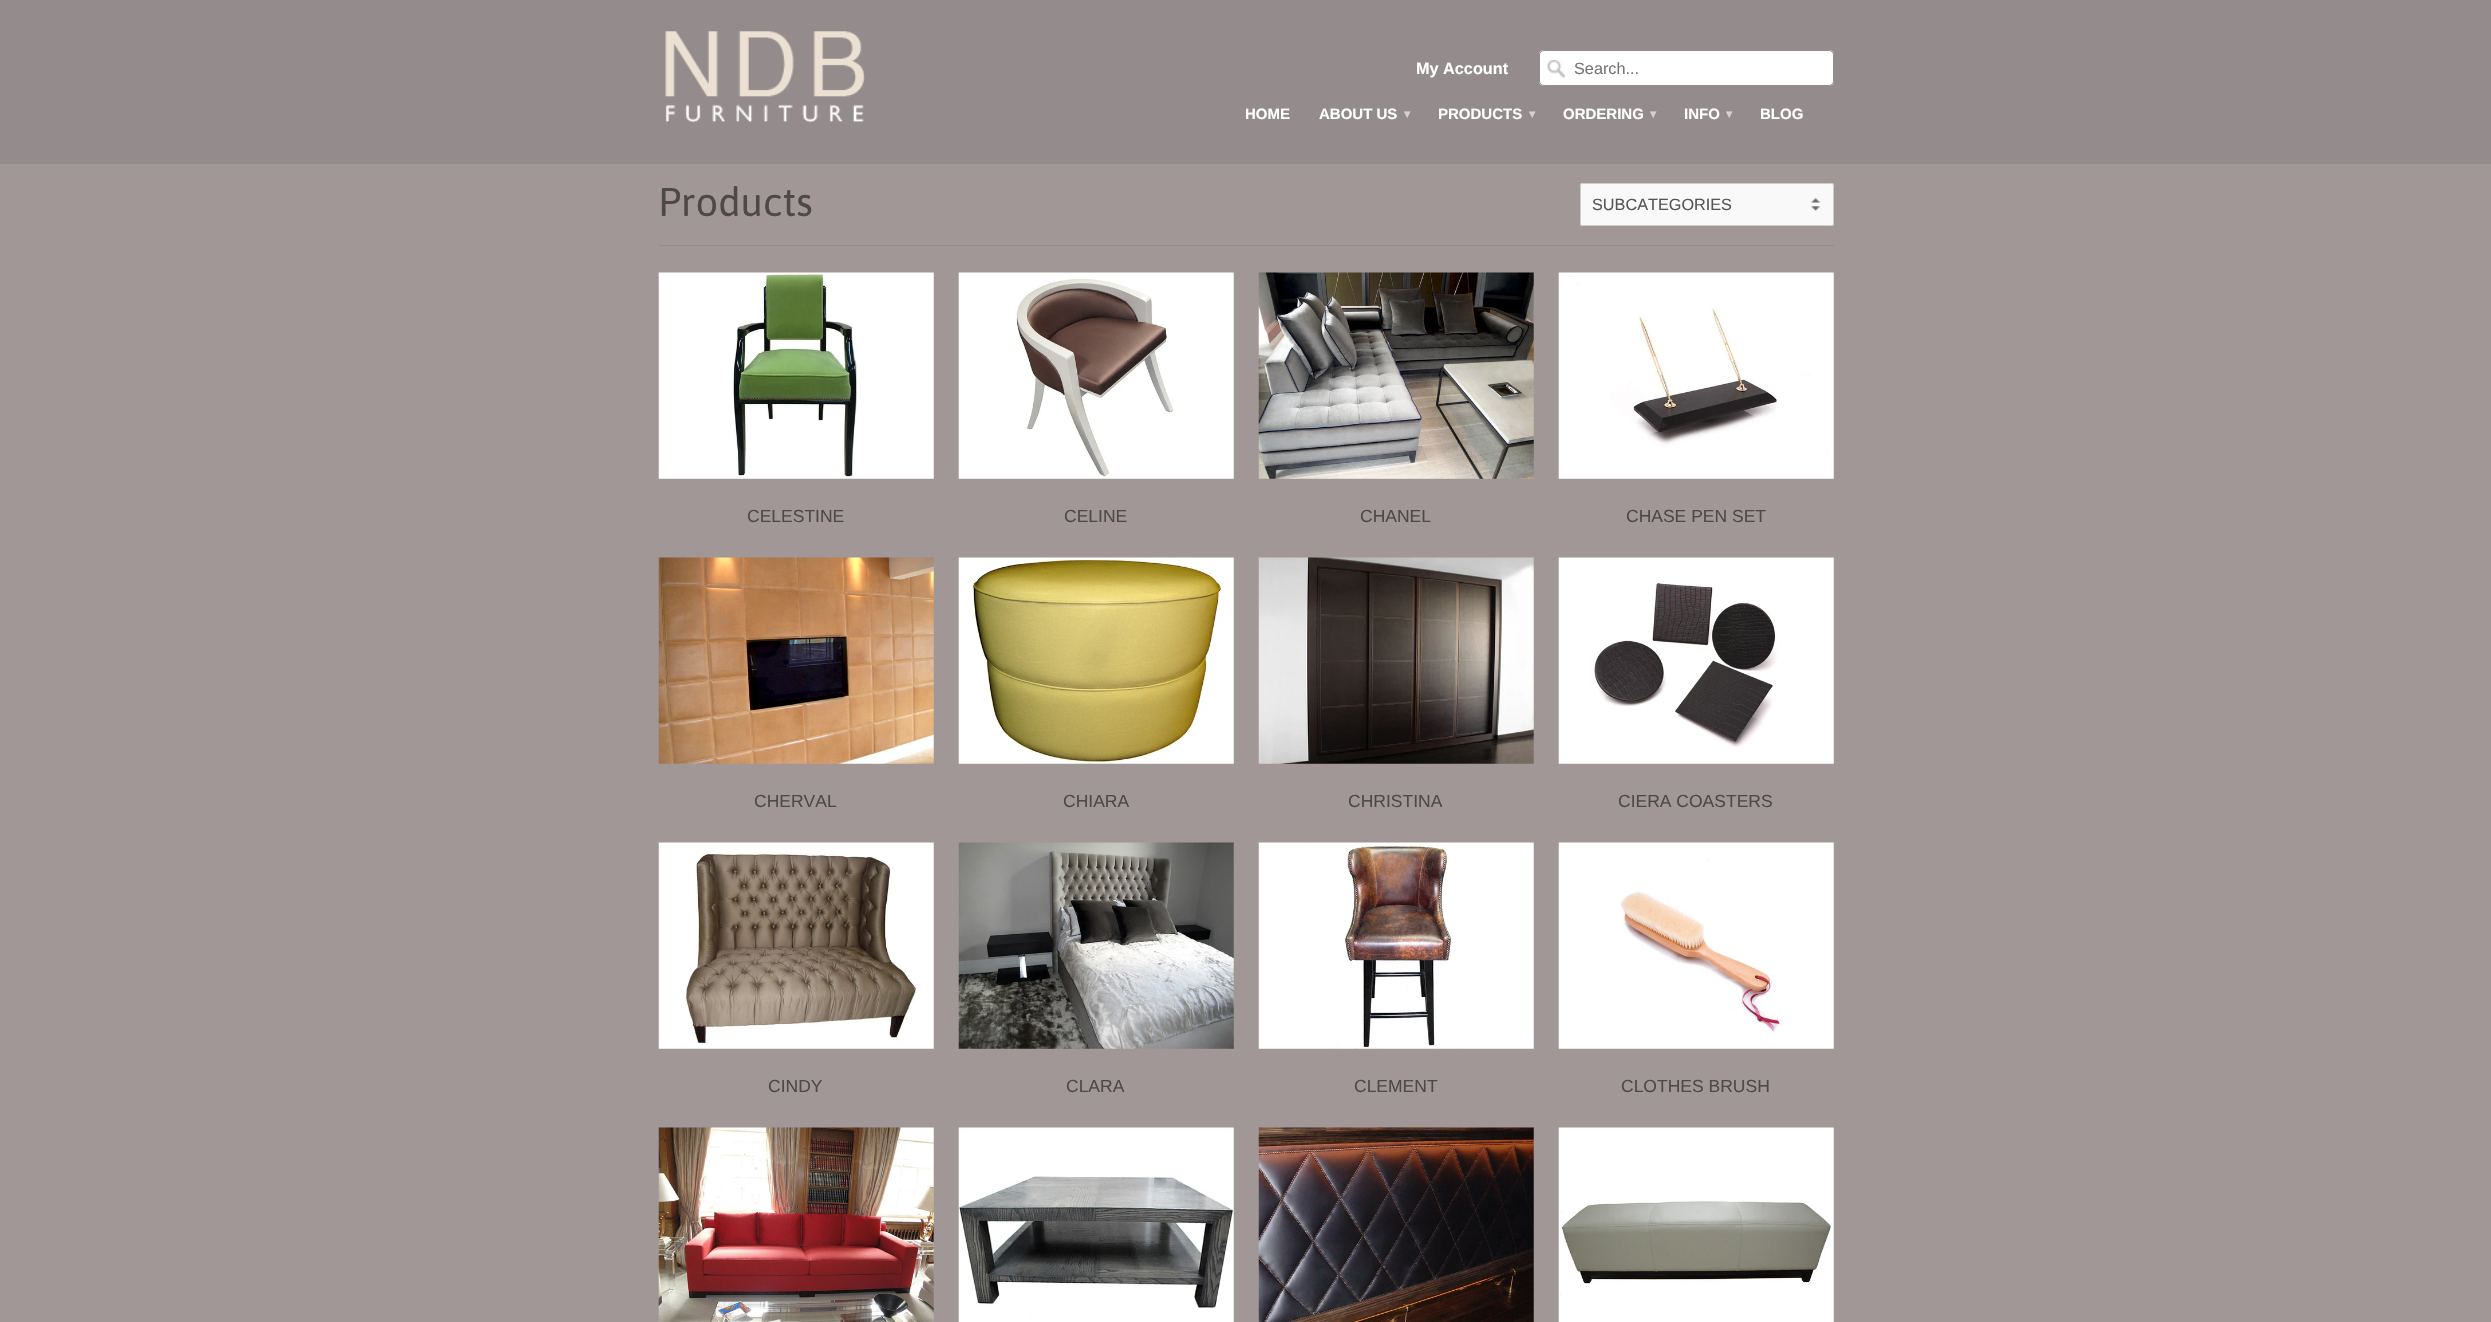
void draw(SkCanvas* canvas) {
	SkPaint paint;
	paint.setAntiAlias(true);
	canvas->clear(0xffa19796);
	paint.setColor(0xff948c8c);
	canvas->drawRect(SkRect::MakeXYWH(0, 0, 2491, 164), paint);
	canvas->drawImageRect(SkImages::DeferredFromEncodedData(SkData::MakeFromFileName("img1.png")), SkRect::MakeXYWH(665, 31, 200, 92), SkSamplingOptions());
	SkFont f1(fontMgr->matchFamilyStyle("Liberation Sans", SkFontStyle::Bold()), 16.25);
	f1.setSubpixel(true);
	paint.setColor(0xffffffff);
	canvas->drawString("My Account", 1416, 74, f1, paint);
	canvas->drawRoundRect(SkRect::MakeXYWH(1539, 50, 295, 36), 5, 5, paint);
	canvas->drawImageRect(SkImages::DeferredFromEncodedData(SkData::MakeFromFileName("img2.png")), SkRect::MakeXYWH(1547, 60, 18, 18), SkSamplingOptions());
	paint.setStroke(true);
	paint.setStrokeWidth(1);
	paint.setColor(0xff948c8c);
	canvas->drawRoundRect(SkRect::MakeXYWH(1539.5, 50.5, 294, 35), 4.5, 4.5, paint);
	SkFont f2(fontMgr->matchFamilyStyle("Liberation Sans", SkFontStyle::Normal()), 16.25);
	f2.setSubpixel(true);
	paint.setStroke(false);
	paint.setColor(0xff757575);
	canvas->drawString("Search...", 1574, 74, f2, paint);
	SkFont f3(fontMgr->matchFamilyStyle("Liberation Sans", SkFontStyle::Bold()), 15);
	f3.setSubpixel(true);
	paint.setColor(0xffffffff);
	canvas->drawString("HOME", 1245, 119, f3, paint);
	canvas->drawString("ABOUT US", 1319, 119, f3, paint);
	SkFont f4(fontMgr->matchFamilyStyle("DejaVu Sans", SkFontStyle::Bold()), 12);
	f4.setSubpixel(true);
	paint.setColor(0xffd4d1d1);
	canvas->drawString("▾", 1404, 118, f4, paint);
	paint.setColor(0xffffffff);
	canvas->drawString("PRODUCTS", 1438, 119, f3, paint);
	paint.setColor(0xffd4d1d1);
	canvas->drawString("▾", 1529, 118, f4, paint);
	paint.setColor(0xffffffff);
	canvas->drawString("ORDERING", 1563, 119, f3, paint);
	paint.setColor(0xffd4d1d1);
	canvas->drawString("▾", 1650, 118, f4, paint);
	paint.setColor(0xffffffff);
	canvas->drawString("INFO", 1684, 119, f3, paint);
	paint.setColor(0xffd4d1d1);
	canvas->drawString("▾", 1726, 118, f4, paint);
	paint.setColor(0xffffffff);
	canvas->drawString("BLOG", 1760, 119, f3, paint);
	paint.setColor(0xff948c8c);
	canvas->drawRect(SkRect::MakeXYWH(659, 245, 1175, 1), paint);
	SkFont f5(fontMgr->matchFamilyStyle("Asap", SkFontStyle::Normal()), 40);
	f5.setSubpixel(true);
	paint.setColor(0xff4e4949);
	canvas->drawString("Products", 658, 216, f5, paint);
	paint.setColor(0xfff9f9f9);
	canvas->drawRoundRect(SkRect::MakeXYWH(1580, 183, 254, 43), 2.5, 2.5, paint);
	canvas->drawImageRect(SkImages::DeferredFromEncodedData(SkData::MakeFromFileName("img3.png")), SkRect::MakeXYWH(1811, 197, 10, 15), SkSamplingOptions());
	paint.setStroke(true);
	paint.setColor(0xffcccccc);
	canvas->drawRoundRect(SkRect::MakeXYWH(1580.5, 183.5, 253, 42), 2, 2, paint);
	paint.setStroke(false);
	paint.setColor(0xff555555);
	canvas->drawString("SUBCATEGORIES", 1592, 210, f2, paint);
	canvas->drawImageRect(SkImages::DeferredFromEncodedData(SkData::MakeFromFileName("img4.png")), SkRect::MakeXYWH(658, 272, 276, 207), SkSamplingOptions());
	SkFont f6(fontMgr->matchFamilyStyle("Liberation Sans", SkFontStyle::Normal()), 17.5);
	f6.setSubpixel(true);
	paint.setColor(0xff4e4949);
	canvas->drawString("CELESTINE", 747, 522, f6, paint);
	canvas->drawImageRect(SkImages::DeferredFromEncodedData(SkData::MakeFromFileName("img5.png")), SkRect::MakeXYWH(958, 272, 276, 207), SkSamplingOptions());
	canvas->drawString("CELINE", 1064, 522, f6, paint);
	canvas->drawImageRect(SkImages::DeferredFromEncodedData(SkData::MakeFromFileName("img6.png")), SkRect::MakeXYWH(1258, 272, 276, 207), SkSamplingOptions());
	canvas->drawString("CHANEL", 1360, 522, f6, paint);
	canvas->drawImageRect(SkImages::DeferredFromEncodedData(SkData::MakeFromFileName("img7.png")), SkRect::MakeXYWH(1558, 272, 276, 207), SkSamplingOptions());
	canvas->drawString("CHASE PEN SET", 1626, 522, f6, paint);
	canvas->drawImageRect(SkImages::DeferredFromEncodedData(SkData::MakeFromFileName("img8.png")), SkRect::MakeXYWH(658, 557, 276, 207), SkSamplingOptions());
	canvas->drawString("CHERVAL", 754, 807, f6, paint);
	canvas->drawImageRect(SkImages::DeferredFromEncodedData(SkData::MakeFromFileName("img9.png")), SkRect::MakeXYWH(958, 557, 276, 207), SkSamplingOptions());
	canvas->drawString("CHIARA", 1063, 807, f6, paint);
	canvas->drawImageRect(SkImages::DeferredFromEncodedData(SkData::MakeFromFileName("img10.png")), SkRect::MakeXYWH(1258, 557, 276, 207), SkSamplingOptions());
	canvas->drawString("CHRISTINA", 1348, 807, f6, paint);
	canvas->drawImageRect(SkImages::DeferredFromEncodedData(SkData::MakeFromFileName("img11.png")), SkRect::MakeXYWH(1558, 557, 276, 207), SkSamplingOptions());
	canvas->drawString("CIERA COASTERS", 1618, 807, f6, paint);
	canvas->drawImageRect(SkImages::DeferredFromEncodedData(SkData::MakeFromFileName("img12.png")), SkRect::MakeXYWH(658, 842, 276, 207), SkSamplingOptions());
	canvas->drawString("CINDY", 768, 1092, f6, paint);
	canvas->drawImageRect(SkImages::DeferredFromEncodedData(SkData::MakeFromFileName("img13.png")), SkRect::MakeXYWH(958, 842, 276, 207), SkSamplingOptions());
	canvas->drawString("CLARA", 1066, 1092, f6, paint);
	canvas->drawImageRect(SkImages::DeferredFromEncodedData(SkData::MakeFromFileName("img14.png")), SkRect::MakeXYWH(1258, 842, 276, 207), SkSamplingOptions());
	canvas->drawString("CLEMENT", 1354, 1092, f6, paint);
	canvas->drawImageRect(SkImages::DeferredFromEncodedData(SkData::MakeFromFileName("img15.png")), SkRect::MakeXYWH(1558, 842, 276, 207), SkSamplingOptions());
	canvas->drawString("CLOTHES BRUSH", 1621, 1092, f6, paint);
	canvas->drawImageRect(SkImages::DeferredFromEncodedData(SkData::MakeFromFileName("img16.png")), SkRect::MakeXYWH(658, 1127, 276, 195), SkSamplingOptions());
	canvas->drawImageRect(SkImages::DeferredFromEncodedData(SkData::MakeFromFileName("img17.png")), SkRect::MakeXYWH(958, 1127, 276, 195), SkSamplingOptions());
	canvas->drawImageRect(SkImages::DeferredFromEncodedData(SkData::MakeFromFileName("img18.png")), SkRect::MakeXYWH(1258, 1127, 276, 195), SkSamplingOptions());
	canvas->drawImageRect(SkImages::DeferredFromEncodedData(SkData::MakeFromFileName("img19.png")), SkRect::MakeXYWH(1558, 1127, 276, 195), SkSamplingOptions());
}
